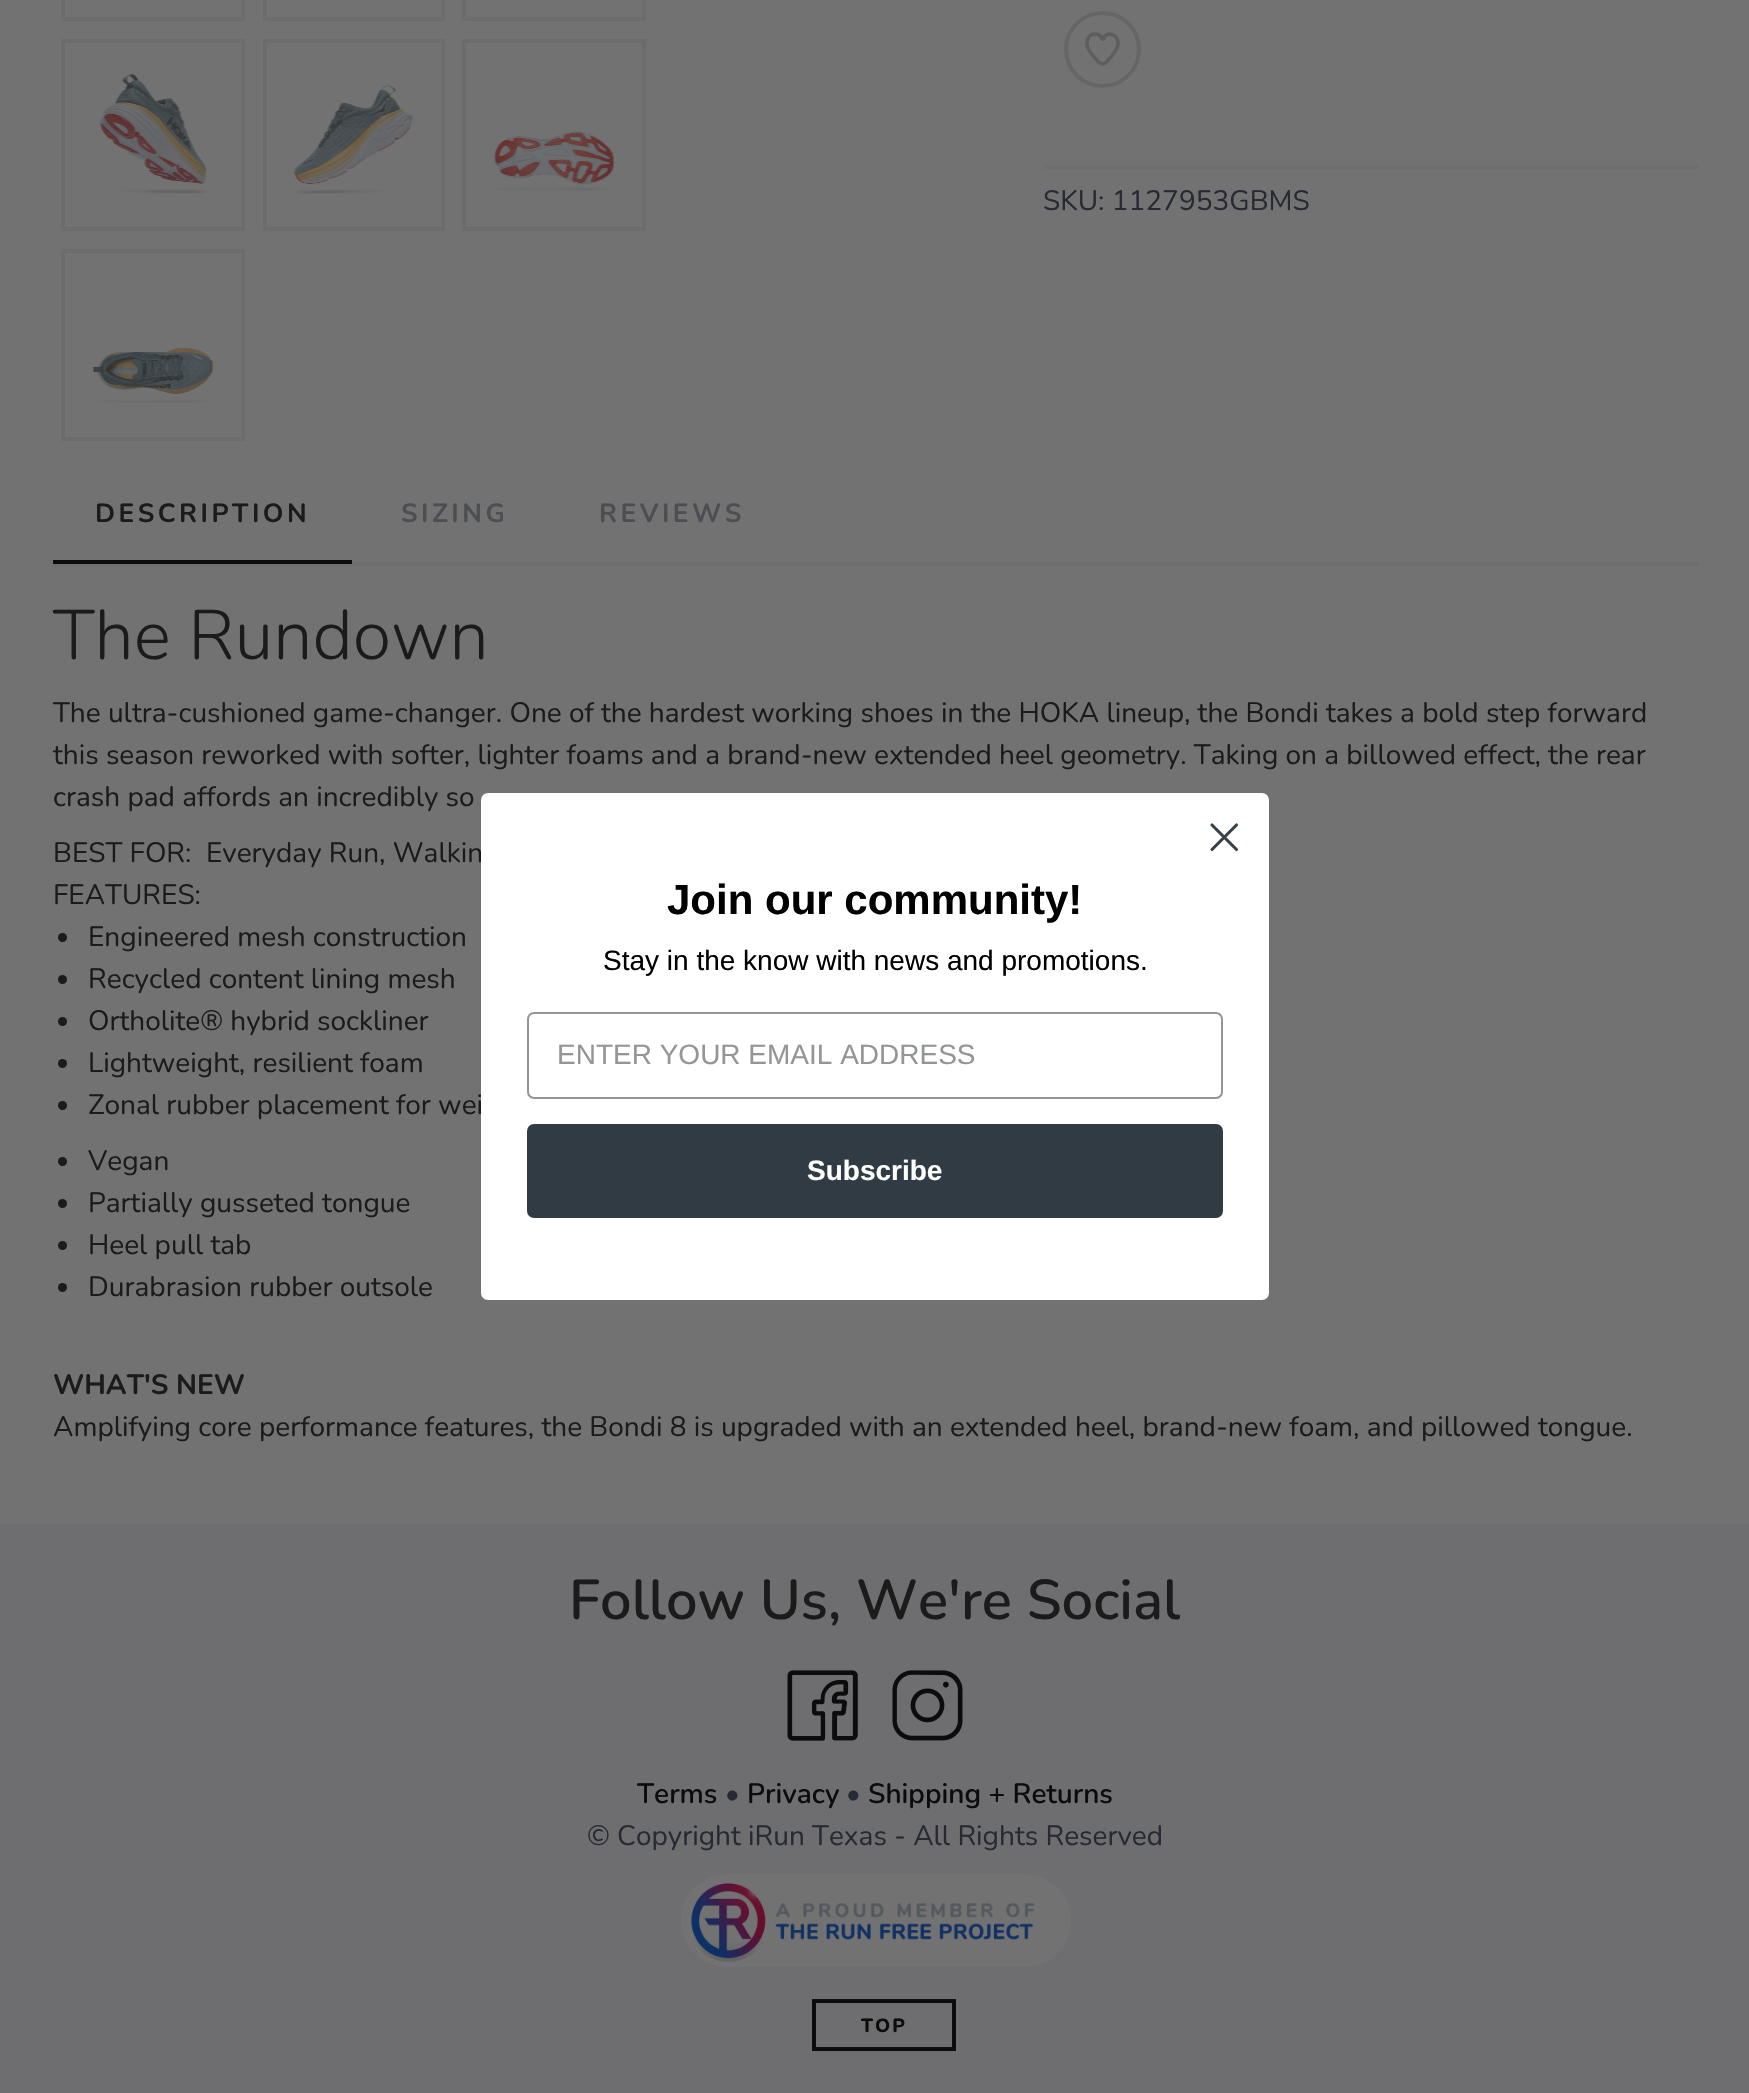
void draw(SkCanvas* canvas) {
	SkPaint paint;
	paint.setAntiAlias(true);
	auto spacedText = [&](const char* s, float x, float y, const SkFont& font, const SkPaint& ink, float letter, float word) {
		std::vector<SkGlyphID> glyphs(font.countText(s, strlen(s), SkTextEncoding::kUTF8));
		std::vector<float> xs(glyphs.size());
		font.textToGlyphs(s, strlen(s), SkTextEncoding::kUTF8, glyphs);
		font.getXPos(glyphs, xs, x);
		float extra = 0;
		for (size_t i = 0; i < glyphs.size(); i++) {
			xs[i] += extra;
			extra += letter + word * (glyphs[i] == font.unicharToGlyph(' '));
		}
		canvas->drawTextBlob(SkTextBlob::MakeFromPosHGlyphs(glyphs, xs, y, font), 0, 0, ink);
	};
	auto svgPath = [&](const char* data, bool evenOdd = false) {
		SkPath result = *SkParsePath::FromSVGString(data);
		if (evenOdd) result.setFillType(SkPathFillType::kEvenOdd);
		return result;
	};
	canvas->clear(0xff727272);
	paint.setStroke(true);
	paint.setStrokeWidth(4);
	paint.setColor(0xff6c6c6e);
	canvas->drawRect(SkRect::MakeXYWH(63, -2, 180, 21), paint);
	canvas->drawRect(SkRect::MakeXYWH(265, -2, 178, 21), paint);
	canvas->drawRect(SkRect::MakeXYWH(464, -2, 180, 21), paint);
	canvas->drawRect(SkRect::MakeXYWH(63, 41, 180, 188), paint);
	canvas->drawImageRect(SkImages::DeferredFromEncodedData(SkData::MakeFromFileName("img1.png")), SkRect::MakeXYWH(99, 74, 108, 120), SkSamplingOptions());
	canvas->drawRect(SkRect::MakeXYWH(265, 41, 178, 188), paint);
	canvas->drawImageRect(SkImages::DeferredFromEncodedData(SkData::MakeFromFileName("img2.png")), SkRect::MakeXYWH(294, 85, 119, 109), SkSamplingOptions());
	canvas->drawRect(SkRect::MakeXYWH(464, 41, 180, 188), paint);
	canvas->drawImageRect(SkImages::DeferredFromEncodedData(SkData::MakeFromFileName("img3.png")), SkRect::MakeXYWH(494, 131, 121, 60), SkSamplingOptions());
	canvas->drawRect(SkRect::MakeXYWH(63, 251, 180, 188), paint);
	canvas->drawImageRect(SkImages::DeferredFromEncodedData(SkData::MakeFromFileName("img4.png")), SkRect::MakeXYWH(93, 347, 121, 56), SkSamplingOptions());
	paint.setColor(0xff666666);
	canvas->drawCircle(1102.5, 49.5, 36.5, paint);
	canvas->drawImageRect(SkImages::DeferredFromEncodedData(SkData::MakeFromFileName("img5.png")), SkRect::MakeXYWH(1085, 32, 35, 34), SkSamplingOptions());
	paint.setStroke(false);
	paint.setColor(0xff6e6e70);
	canvas->drawRect(SkRect::MakeXYWH(1043, 165, 655, 4), paint);
	SkFont f1(fontMgr->matchFamilyStyle("Nunito", SkFontStyle::Normal()), 28);
	f1.setSubpixel(true);
	paint.setColor(0xff272a32);
	canvas->drawString("SKU: 1127953GBMS", 1043, 210, f1, paint);
	paint.setColor(0xff6e6e70);
	canvas->drawRect(SkRect::MakeXYWH(53, 562, 1645, 4), paint);
	SkFont f2(fontMgr->matchFamilyStyle("Nunito", SkFontStyle::Bold()), 26.25);
	f2.setSubpixel(true);
	paint.setColor(0xff1b1b1b);
	spacedText("DESCRIPTION", 95, 522, f2, paint, 3.5, 0);
	paint.setColor(0xff0c0c0c);
	canvas->drawRect(SkRect::MakeXYWH(53, 560, 299, 4), paint);
	paint.setColor(0xff4c4e52);
	spacedText("SIZING", 401, 522, f2, paint, 3.5, 0);
	spacedText("REVIEWS", 599, 522, f2, paint, 3.5, 0);
	SkFont f3(fontMgr->matchFamilyStyle("Nunito", SkFontStyle(300, SkFontStyle::kNormal_Width, SkFontStyle::kUpright_Slant)), 70);
	f3.setSubpixel(true);
	paint.setColor(0xff1b1b1b);
	canvas->drawString("The Rundown", 53, 659, f3, paint);
	canvas->drawString("The ultra-cushioned game-changer. One of the hardest working shoes in the HOKA lineup, the Bondi takes a bold step forward", 53, 722, f1, paint);
	canvas->drawString("this season reworked with softer, lighter foams and a brand-new extended heel geometry. Taking on a billowed effect, the rear", 53, 764, f1, paint);
	canvas->drawString("crash pad affords an incredibly so", 53, 806, f1, paint);
	canvas->drawString("BEST FOR:  Everyday Run, Walkin", 53, 862, f1, paint);
	canvas->drawString("FEATURES:", 53, 904, f1, paint);
	canvas->drawCircle(62.5, 937.5, 4.5, paint);
	canvas->drawString("Engineered mesh construction", 88, 946, f1, paint);
	canvas->drawCircle(62.5, 979.5, 4.5, paint);
	canvas->drawString("Recycled content lining mesh", 88, 988, f1, paint);
	canvas->drawCircle(62.5, 1021.5, 4.5, paint);
	canvas->drawString("Ortholite® hybrid sockliner", 88, 1030, f1, paint);
	canvas->drawCircle(62.5, 1063.5, 4.5, paint);
	canvas->drawString("Lightweight, resilient foam", 88, 1072, f1, paint);
	canvas->drawCircle(62.5, 1105.5, 4.5, paint);
	canvas->drawString("Zonal rubber placement for wei", 88, 1114, f1, paint);
	canvas->drawCircle(62.5, 1161.5, 4.5, paint);
	canvas->drawString("Vegan", 88, 1170, f1, paint);
	canvas->drawCircle(62.5, 1203.5, 4.5, paint);
	canvas->drawString("Partially gusseted tongue", 88, 1212, f1, paint);
	canvas->drawCircle(62.5, 1245.5, 4.5, paint);
	canvas->drawString("Heel pull tab", 88, 1254, f1, paint);
	canvas->drawCircle(62.5, 1287.5, 4.5, paint);
	canvas->drawString("Durabrasion rubber outsole", 88, 1296, f1, paint);
	SkFont f4(fontMgr->matchFamilyStyle("Nunito", SkFontStyle::Bold()), 28);
	f4.setSubpixel(true);
	canvas->drawString("WHAT'S NEW", 53, 1394, f4, paint);
	canvas->drawString("Amplifying core performance features, the Bondi 8 is upgraded with an extended heel, brand-new foam, and pillowed tongue.", 53, 1436, f1, paint);
	paint.setColor(0xffffffff);
	canvas->drawRoundRect(SkRect::MakeXYWH(481, 793, 788, 507), 7, 7, paint);
	paint.setStroke(true);
	paint.setStrokeWidth(3.1);
	paint.setStrokeCap(SkPaint::kRound_Cap);
	paint.setStrokeJoin(SkPaint::kRound_Join);
	paint.setColor(0xff373f47);
	canvas->drawPath(svgPath("M1212 825L1236.5 849.5M1212 849.5L1236.5 825Z"), paint);
	SkFont f5(fontMgr->matchFamilyStyle("Liberation Sans", SkFontStyle::Bold()), 42);
	f5.setSubpixel(true);
	paint.setStroke(false);
	paint.setColor(0xff000000);
	canvas->drawString("Join our community!", 667, 914, f5, paint);
	SkFont f6(fontMgr->matchFamilyStyle("Liberation Sans", SkFontStyle::Normal()), 28);
	f6.setSubpixel(true);
	canvas->drawString("Stay in the know with news and promotions.", 603, 970, f6, paint);
	paint.setStroke(true);
	paint.setStrokeWidth(2);
	paint.setStrokeCap(SkPaint::kButt_Cap);
	paint.setStrokeJoin(SkPaint::kMiter_Join);
	paint.setColor(0xff949596);
	canvas->drawRoundRect(SkRect::MakeXYWH(528, 1013, 694, 85), 6, 6, paint);
	paint.setStroke(false);
	canvas->drawString("ENTER YOUR EMAIL ADDRESS", 557, 1064, f6, paint);
	paint.setColor(0xff303b43);
	canvas->drawRoundRect(SkRect::MakeXYWH(527, 1124, 696, 94), 7, 7, paint);
	SkFont f7(fontMgr->matchFamilyStyle("Liberation Sans", SkFontStyle::Bold()), 28);
	f7.setSubpixel(true);
	paint.setColor(0xffffffff);
	canvas->drawString("Subscribe", 807, 1180, f7, paint);
	paint.setColor(0xff6e6e70);
	canvas->drawRect(SkRect::MakeXYWH(0, 1524, 1749, 569), paint);
	SkFont f8(fontMgr->matchFamilyStyle("Nunito", SkFontStyle(600, SkFontStyle::kNormal_Width, SkFontStyle::kUpright_Slant)), 56);
	f8.setSubpixel(true);
	paint.setColor(0xff1b1b1b);
	canvas->drawString("Follow Us, We're Social", 569, 1619, f8, paint);
	canvas->drawImageRect(SkImages::DeferredFromEncodedData(SkData::MakeFromFileName("img6.png")), SkRect::MakeXYWH(787, 1670, 71, 71), SkSamplingOptions());
	canvas->drawImageRect(SkImages::DeferredFromEncodedData(SkData::MakeFromFileName("img7.png")), SkRect::MakeXYWH(892, 1670, 71, 71), SkSamplingOptions());
	SkFont f9(fontMgr->matchFamilyStyle("Nunito", SkFontStyle(600, SkFontStyle::kNormal_Width, SkFontStyle::kUpright_Slant)), 28);
	f9.setSubpixel(true);
	paint.setColor(0xff0c0c0c);
	canvas->drawString("Terms", 637, 1803, f9, paint);
	paint.setColor(0xff272a32);
	canvas->drawString("•", 725, 1803, f1, paint);
	paint.setColor(0xff0c0c0c);
	canvas->drawString("Privacy", 747, 1803, f9, paint);
	paint.setColor(0xff272a32);
	canvas->drawString("•", 846, 1803, f1, paint);
	paint.setColor(0xff0c0c0c);
	canvas->drawString("Shipping + Returns", 868, 1803, f9, paint);
	paint.setColor(0xff272a32);
	canvas->drawString("© Copyright iRun Texas - All Rights Reserved", 587, 1845, f1, paint);
	paint.setColor(0xff727272);
	canvas->drawRoundRect(SkRect::MakeXYWH(681, 1874, 390, 93), 46.5, 46.5, paint);
	canvas->drawImageRect(SkImages::DeferredFromEncodedData(SkData::MakeFromFileName("img8.png")), SkRect::MakeXYWH(690, 1882, 345, 80), SkSamplingOptions());
	paint.setStroke(true);
	paint.setStrokeWidth(4);
	paint.setColor(0xff0c0c0c);
	canvas->drawRect(SkRect::MakeXYWH(814, 2001, 140, 48), paint);
	SkFont f10(fontMgr->matchFamilyStyle("Nunito", SkFontStyle(800, SkFontStyle::kNormal_Width, SkFontStyle::kUpright_Slant)), 19);
	f10.setSubpixel(true);
	paint.setStroke(false);
	spacedText("TOP", 861, 2032, f10, paint, 2, 0);
}
